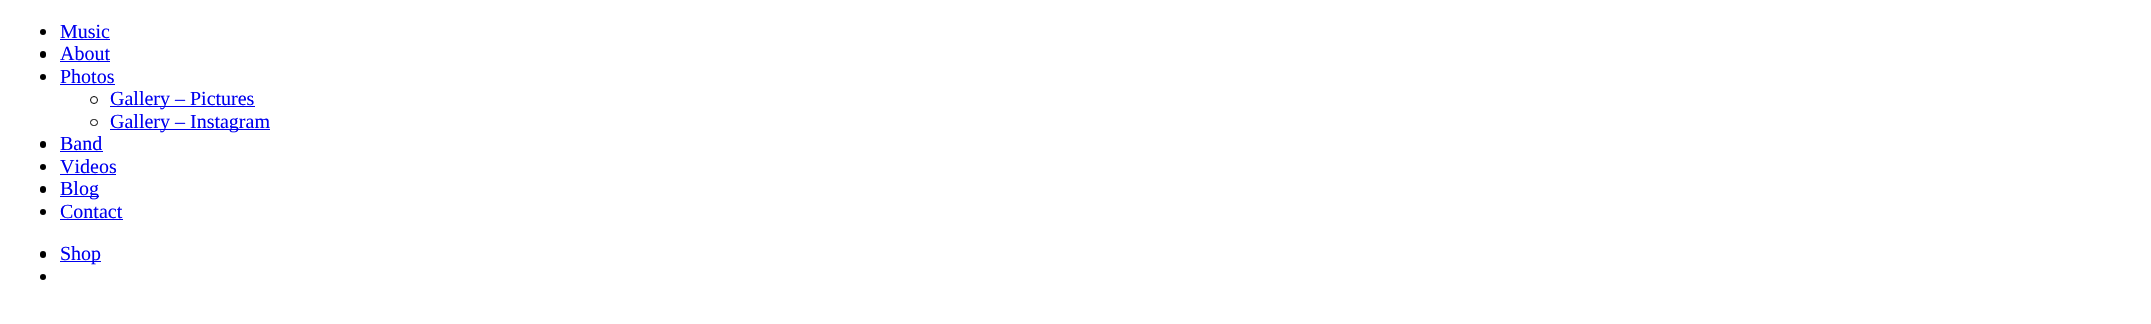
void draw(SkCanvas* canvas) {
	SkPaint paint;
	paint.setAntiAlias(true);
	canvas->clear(0xffffffff);
	paint.setColor(0xff000000);
	canvas->drawCircle(43, 32, 3, paint);
	SkFont f1(fontMgr->matchFamilyStyle("Liberation Serif", SkFontStyle::Normal()), 20);
	f1.setSubpixel(true);
	paint.setColor(0xff0000ee);
	canvas->drawString("Music", 60, 38, f1, paint);
	canvas->drawRect(SkRect::MakeXYWH(60, 39, 50, 1), paint);
	paint.setColor(0xff000000);
	canvas->drawRoundRect(SkRect::MakeXYWH(40, 51, 6, 7), 3, 3, paint);
	paint.setColor(0xff0000ee);
	canvas->drawString("About", 60, 60, f1, paint);
	canvas->drawRect(SkRect::MakeXYWH(60, 61, 50, 1), paint);
	paint.setColor(0xff000000);
	canvas->drawCircle(43, 77, 3, paint);
	paint.setColor(0xff0000ee);
	canvas->drawString("Photos", 60, 83, f1, paint);
	canvas->drawRect(SkRect::MakeXYWH(60, 84, 55, 1), paint);
	paint.setStroke(true);
	paint.setStrokeWidth(1);
	paint.setColor(0xff000000);
	canvas->drawCircle(94, 100, 3.5, paint);
	paint.setStroke(false);
	paint.setColor(0xff0000ee);
	canvas->drawRect(SkRect::MakeXYWH(110, 106, 145, 1), paint);
	canvas->drawString("Gallery – Pictures", 110, 105, f1, paint);
	paint.setStroke(true);
	paint.setColor(0xff000000);
	canvas->drawRoundRect(SkRect::MakeXYWH(90.5, 119.5, 7, 6), 3, 3, paint);
	paint.setStroke(false);
	paint.setColor(0xff0000ee);
	canvas->drawRect(SkRect::MakeXYWH(110, 129, 160, 1), paint);
	canvas->drawString("Gallery – Instagram", 110, 128, f1, paint);
	paint.setColor(0xff000000);
	canvas->drawRoundRect(SkRect::MakeXYWH(40, 141, 6, 7), 3, 3, paint);
	paint.setColor(0xff0000ee);
	canvas->drawString("Band", 60, 150, f1, paint);
	canvas->drawRect(SkRect::MakeXYWH(60, 151, 43, 1), paint);
	paint.setColor(0xff000000);
	canvas->drawCircle(43, 167, 3, paint);
	paint.setColor(0xff0000ee);
	canvas->drawString("Videos", 60, 173, f1, paint);
	canvas->drawRect(SkRect::MakeXYWH(60, 174, 56, 1), paint);
	paint.setColor(0xff000000);
	canvas->drawRoundRect(SkRect::MakeXYWH(40, 186, 6, 7), 3, 3, paint);
	paint.setColor(0xff0000ee);
	canvas->drawRect(SkRect::MakeXYWH(60, 196, 39, 1), paint);
	canvas->drawString("Blog", 60, 195, f1, paint);
	paint.setColor(0xff000000);
	canvas->drawCircle(43, 212, 3, paint);
	paint.setColor(0xff0000ee);
	canvas->drawString("Contact", 60, 218, f1, paint);
	canvas->drawRect(SkRect::MakeXYWH(60, 219, 63, 1), paint);
	paint.setColor(0xff000000);
	canvas->drawRoundRect(SkRect::MakeXYWH(40, 251, 6, 7), 3, 3, paint);
	paint.setColor(0xff0000ee);
	canvas->drawRect(SkRect::MakeXYWH(60, 261, 41, 1), paint);
	canvas->drawString("Shop", 60, 260, f1, paint);
	paint.setColor(0xff000000);
	canvas->drawCircle(43, 277, 3, paint);
}
